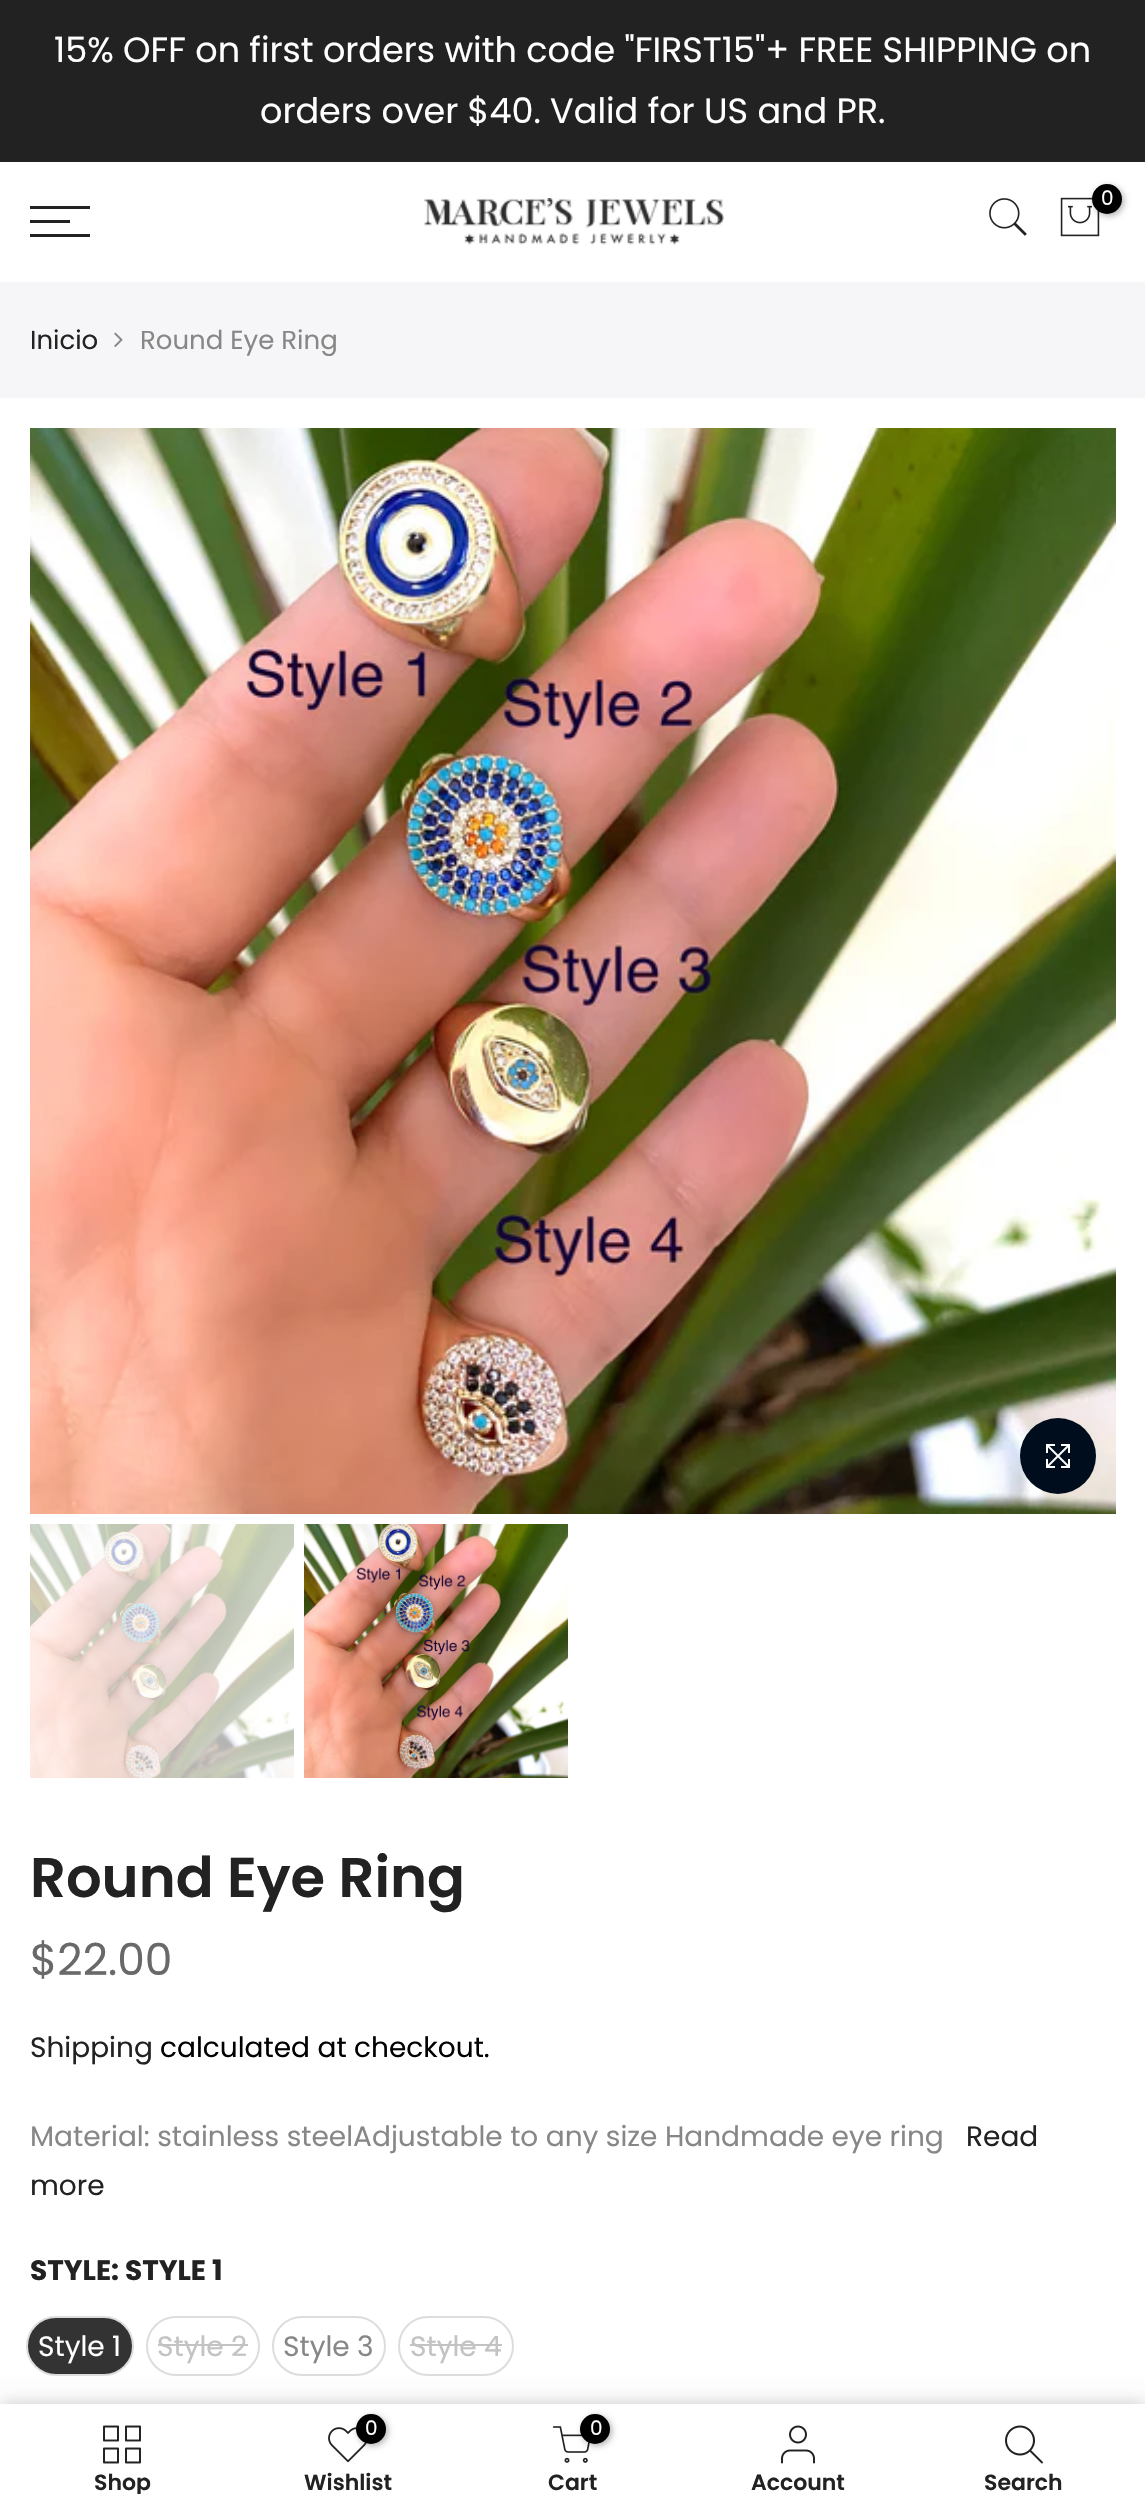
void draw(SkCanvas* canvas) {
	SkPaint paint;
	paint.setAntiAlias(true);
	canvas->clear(0xffffffff);
	paint.setColor(0xff222222);
	canvas->drawRect(SkRect::MakeXYWH(0, 0, 1145, 162), paint);
	SkFont f1(fontMgr->matchFamilyStyle("Poppins", SkFontStyle::Normal()), 35);
	f1.setSubpixel(true);
	paint.setColor(0xffffffff);
	canvas->drawString("15% OFF on first orders with code \"FIRST15\"+ FREE SHIPPING on", 54, 62, f1, paint);
	canvas->drawString("orders over $40. Valid for US and PR.", 260, 123, f1, paint);
	paint.setColor(0xff222222);
	canvas->drawRect(SkRect::MakeXYWH(30, 206, 60, 3), paint);
	canvas->drawRect(SkRect::MakeXYWH(30, 220, 40, 3), paint);
	canvas->drawRect(SkRect::MakeXYWH(30, 234, 60, 3), paint);
	canvas->drawImageRect(SkImages::DeferredFromEncodedData(SkData::MakeFromFileName("img1.png")), SkRect::MakeXYWH(424, 198, 300, 47), SkSamplingOptions());
	canvas->drawImageRect(SkImages::DeferredFromEncodedData(SkData::MakeFromFileName("img2.png")), SkRect::MakeXYWH(989, 198, 38, 38), SkSamplingOptions());
	canvas->drawImageRect(SkImages::DeferredFromEncodedData(SkData::MakeFromFileName("img3.png")), SkRect::MakeXYWH(1060, 197, 40, 40), SkSamplingOptions());
	paint.setColor(0x4d000000);
	paint.setMaskFilter(SkMaskFilter::MakeBlur(kNormal_SkBlurStyle, 3));
	canvas->drawRoundRect(SkRect::MakeXYWH(1094, 186, 30, 30), 15, 15, paint);
	paint.setMaskFilter(nullptr);
	paint.setColor(0xff000000);
	canvas->drawCircle(1107, 199, 15, paint);
	SkFont f2(fontMgr->matchFamilyStyle("Poppins", SkFontStyle::Normal()), 20);
	f2.setSubpixel(true);
	paint.setColor(0xffffffff);
	canvas->drawString("0", 1101, 205, f2, paint);
	paint.setColor(0xfff6f6f8);
	canvas->drawRect(SkRect::MakeXYWH(0, 282, 1145, 116), paint);
	SkFont f3(fontMgr->matchFamilyStyle("Poppins", SkFontStyle::Normal()), 26);
	f3.setSubpixel(true);
	paint.setColor(0xff222222);
	canvas->drawString("Inicio", 30, 349, f3, paint);
	canvas->drawImageRect(SkImages::DeferredFromEncodedData(SkData::MakeFromFileName("img4.png")), SkRect::MakeXYWH(114, 332, 9, 15), SkSamplingOptions());
	paint.setColor(0xff878787);
	canvas->drawString("Round Eye Ring", 140, 349, f3, paint);
	canvas->drawImageRect(SkImages::DeferredFromEncodedData(SkData::MakeFromFileName("img5.png")), SkRect::MakeXYWH(30, 428, 1086, 1086), SkSamplingOptions());
	paint.setColor(0xff000d1d);
	canvas->drawCircle(1058, 1456, 38, paint);
	canvas->drawImageRect(SkImages::DeferredFromEncodedData(SkData::MakeFromFileName("img6.png")), SkRect::MakeXYWH(1046, 1444, 24, 24), SkSamplingOptions());
	canvas->drawImageRect(SkImages::DeferredFromEncodedData(SkData::MakeFromFileName("img7.png")), SkRect::MakeXYWH(30, 1524, 264, 254), SkSamplingOptions());
	canvas->drawImageRect(SkImages::DeferredFromEncodedData(SkData::MakeFromFileName("img8.png")), SkRect::MakeXYWH(304, 1524, 264, 254), SkSamplingOptions());
	SkFont f4(fontMgr->matchFamilyStyle("Poppins", SkFontStyle(600, SkFontStyle::kNormal_Width, SkFontStyle::kUpright_Slant)), 56);
	f4.setSubpixel(true);
	paint.setColor(0xff222222);
	canvas->drawString("Round Eye Ring", 30, 1897, f4, paint);
	SkFont f5(fontMgr->matchFamilyStyle("Poppins", SkFontStyle::Normal()), 44);
	f5.setSubpixel(true);
	paint.setColor(0xff696969);
	canvas->drawString("$22.00", 30, 1975, f5, paint);
	SkFont f6(fontMgr->matchFamilyStyle("Poppins", SkFontStyle::Normal()), 28);
	f6.setSubpixel(true);
	paint.setColor(0xff222222);
	canvas->drawString("Shipping", 30, 2057, f6, paint);
	paint.setColor(0xff000000);
	canvas->drawString("calculated at checkout.", 160, 2057, f6, paint);
	paint.setColor(0xff878787);
	canvas->drawString("Material: stainless steelAdjustable to any size Handmade eye ring", 30, 2146, f6, paint);
	paint.setColor(0xff222222);
	canvas->drawString("Read", 966, 2146, f6, paint);
	canvas->drawString("more", 30, 2195, f6, paint);
	SkFont f7(fontMgr->matchFamilyStyle("Poppins", SkFontStyle::Bold()), 28);
	f7.setSubpixel(true);
	canvas->drawString("STYLE: STYLE 1", 30, 2280, f7, paint);
	paint.setColor(0xff333333);
	canvas->drawRoundRect(SkRect::MakeXYWH(27, 2317, 106, 58), 29, 29, paint);
	paint.setStroke(true);
	paint.setStrokeWidth(2);
	paint.setColor(0xffdddddd);
	canvas->drawRoundRect(SkRect::MakeXYWH(27, 2317, 106, 58), 29, 29, paint);
	paint.setStroke(false);
	paint.setColor(0xffffffff);
	canvas->drawString("Style 1", 38, 2356, f6, paint);
	paint.setStroke(true);
	paint.setColor(0xffdddddd);
	canvas->drawRoundRect(SkRect::MakeXYWH(147, 2317, 112, 58), 29, 29, paint);
	paint.setStroke(false);
	paint.setColor(0xffc3c3c3);
	canvas->drawString("Style 2", 157, 2356, f6, paint);
	canvas->drawRect(SkRect::MakeXYWH(158, 2344, 90, 2), paint);
	paint.setStroke(true);
	paint.setColor(0xffdddddd);
	canvas->drawRoundRect(SkRect::MakeXYWH(273, 2317, 112, 58), 29, 29, paint);
	paint.setStroke(false);
	paint.setColor(0xff878787);
	canvas->drawString("Style 3", 283, 2356, f6, paint);
	paint.setStroke(true);
	paint.setColor(0xffdddddd);
	canvas->drawRoundRect(SkRect::MakeXYWH(399, 2317, 114, 58), 29, 29, paint);
	paint.setStroke(false);
	paint.setColor(0xffc3c3c3);
	canvas->drawString("Style 4", 410, 2356, f6, paint);
	canvas->drawRect(SkRect::MakeXYWH(410, 2344, 92, 2), paint);
	paint.setColor(0x1f000000);
	paint.setMaskFilter(SkMaskFilter::MakeBlur(kNormal_SkBlurStyle, 9));
	canvas->drawRect(SkRect::MakeXYWH(0, 2406, 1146, 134), paint);
	paint.setMaskFilter(nullptr);
	paint.setMaskFilter(SkMaskFilter::MakeBlur(kNormal_SkBlurStyle, 9));
	canvas->drawRect(SkRect::MakeXYWH(0, 2404, 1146, 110), paint);
	paint.setMaskFilter(nullptr);
	paint.setColor(0xffffffff);
	canvas->drawRect(SkRect::MakeXYWH(0, 2404, 1145, 109), paint);
	canvas->drawImageRect(SkImages::DeferredFromEncodedData(SkData::MakeFromFileName("img9.png")), SkRect::MakeXYWH(103, 2425, 38, 39), SkSamplingOptions());
	canvas->save();
	canvas->clipRect(SkRect::MakeXYWH(30, 2472, 186, 22));
	SkFont f8(fontMgr->matchFamilyStyle("Poppins", SkFontStyle(600, SkFontStyle::kNormal_Width, SkFontStyle::kUpright_Slant)), 22);
	f8.setSubpixel(true);
	paint.setColor(0xff222222);
	canvas->drawString("Shop", 94, 2490, f8, paint);
	canvas->restore();
	canvas->drawImageRect(SkImages::DeferredFromEncodedData(SkData::MakeFromFileName("img10.png")), SkRect::MakeXYWH(328, 2427, 39, 36), SkSamplingOptions());
	paint.setColor(0x4d000000);
	paint.setMaskFilter(SkMaskFilter::MakeBlur(kNormal_SkBlurStyle, 3));
	canvas->drawRoundRect(SkRect::MakeXYWH(358, 2416, 30, 30), 15, 15, paint);
	paint.setMaskFilter(nullptr);
	paint.setColor(0xff000000);
	canvas->drawCircle(371, 2429, 15, paint);
	paint.setColor(0xffffffff);
	canvas->drawString("0", 365, 2435, f2, paint);
	paint.setColor(0xff222222);
	canvas->drawString("Wishlist", 304, 2490, f8, paint);
	canvas->drawImageRect(SkImages::DeferredFromEncodedData(SkData::MakeFromFileName("img11.png")), SkRect::MakeXYWH(552, 2426, 38, 37), SkSamplingOptions());
	paint.setColor(0x4d000000);
	paint.setMaskFilter(SkMaskFilter::MakeBlur(kNormal_SkBlurStyle, 3));
	canvas->drawRoundRect(SkRect::MakeXYWH(582, 2416, 30, 30), 15, 15, paint);
	paint.setMaskFilter(nullptr);
	paint.setColor(0xff000000);
	canvas->drawCircle(595, 2429, 15, paint);
	paint.setColor(0xffffffff);
	canvas->drawString("0", 590, 2435, f2, paint);
	paint.setColor(0xff222222);
	canvas->drawString("Cart", 548, 2490, f8, paint);
	canvas->drawImageRect(SkImages::DeferredFromEncodedData(SkData::MakeFromFileName("img12.png")), SkRect::MakeXYWH(781, 2425, 34, 39), SkSamplingOptions());
	canvas->drawString("Account", 751, 2490, f8, paint);
	canvas->drawImageRect(SkImages::DeferredFromEncodedData(SkData::MakeFromFileName("img13.png")), SkRect::MakeXYWH(1005, 2425, 38, 39), SkSamplingOptions());
	canvas->drawString("Search", 984, 2490, f8, paint);
}
